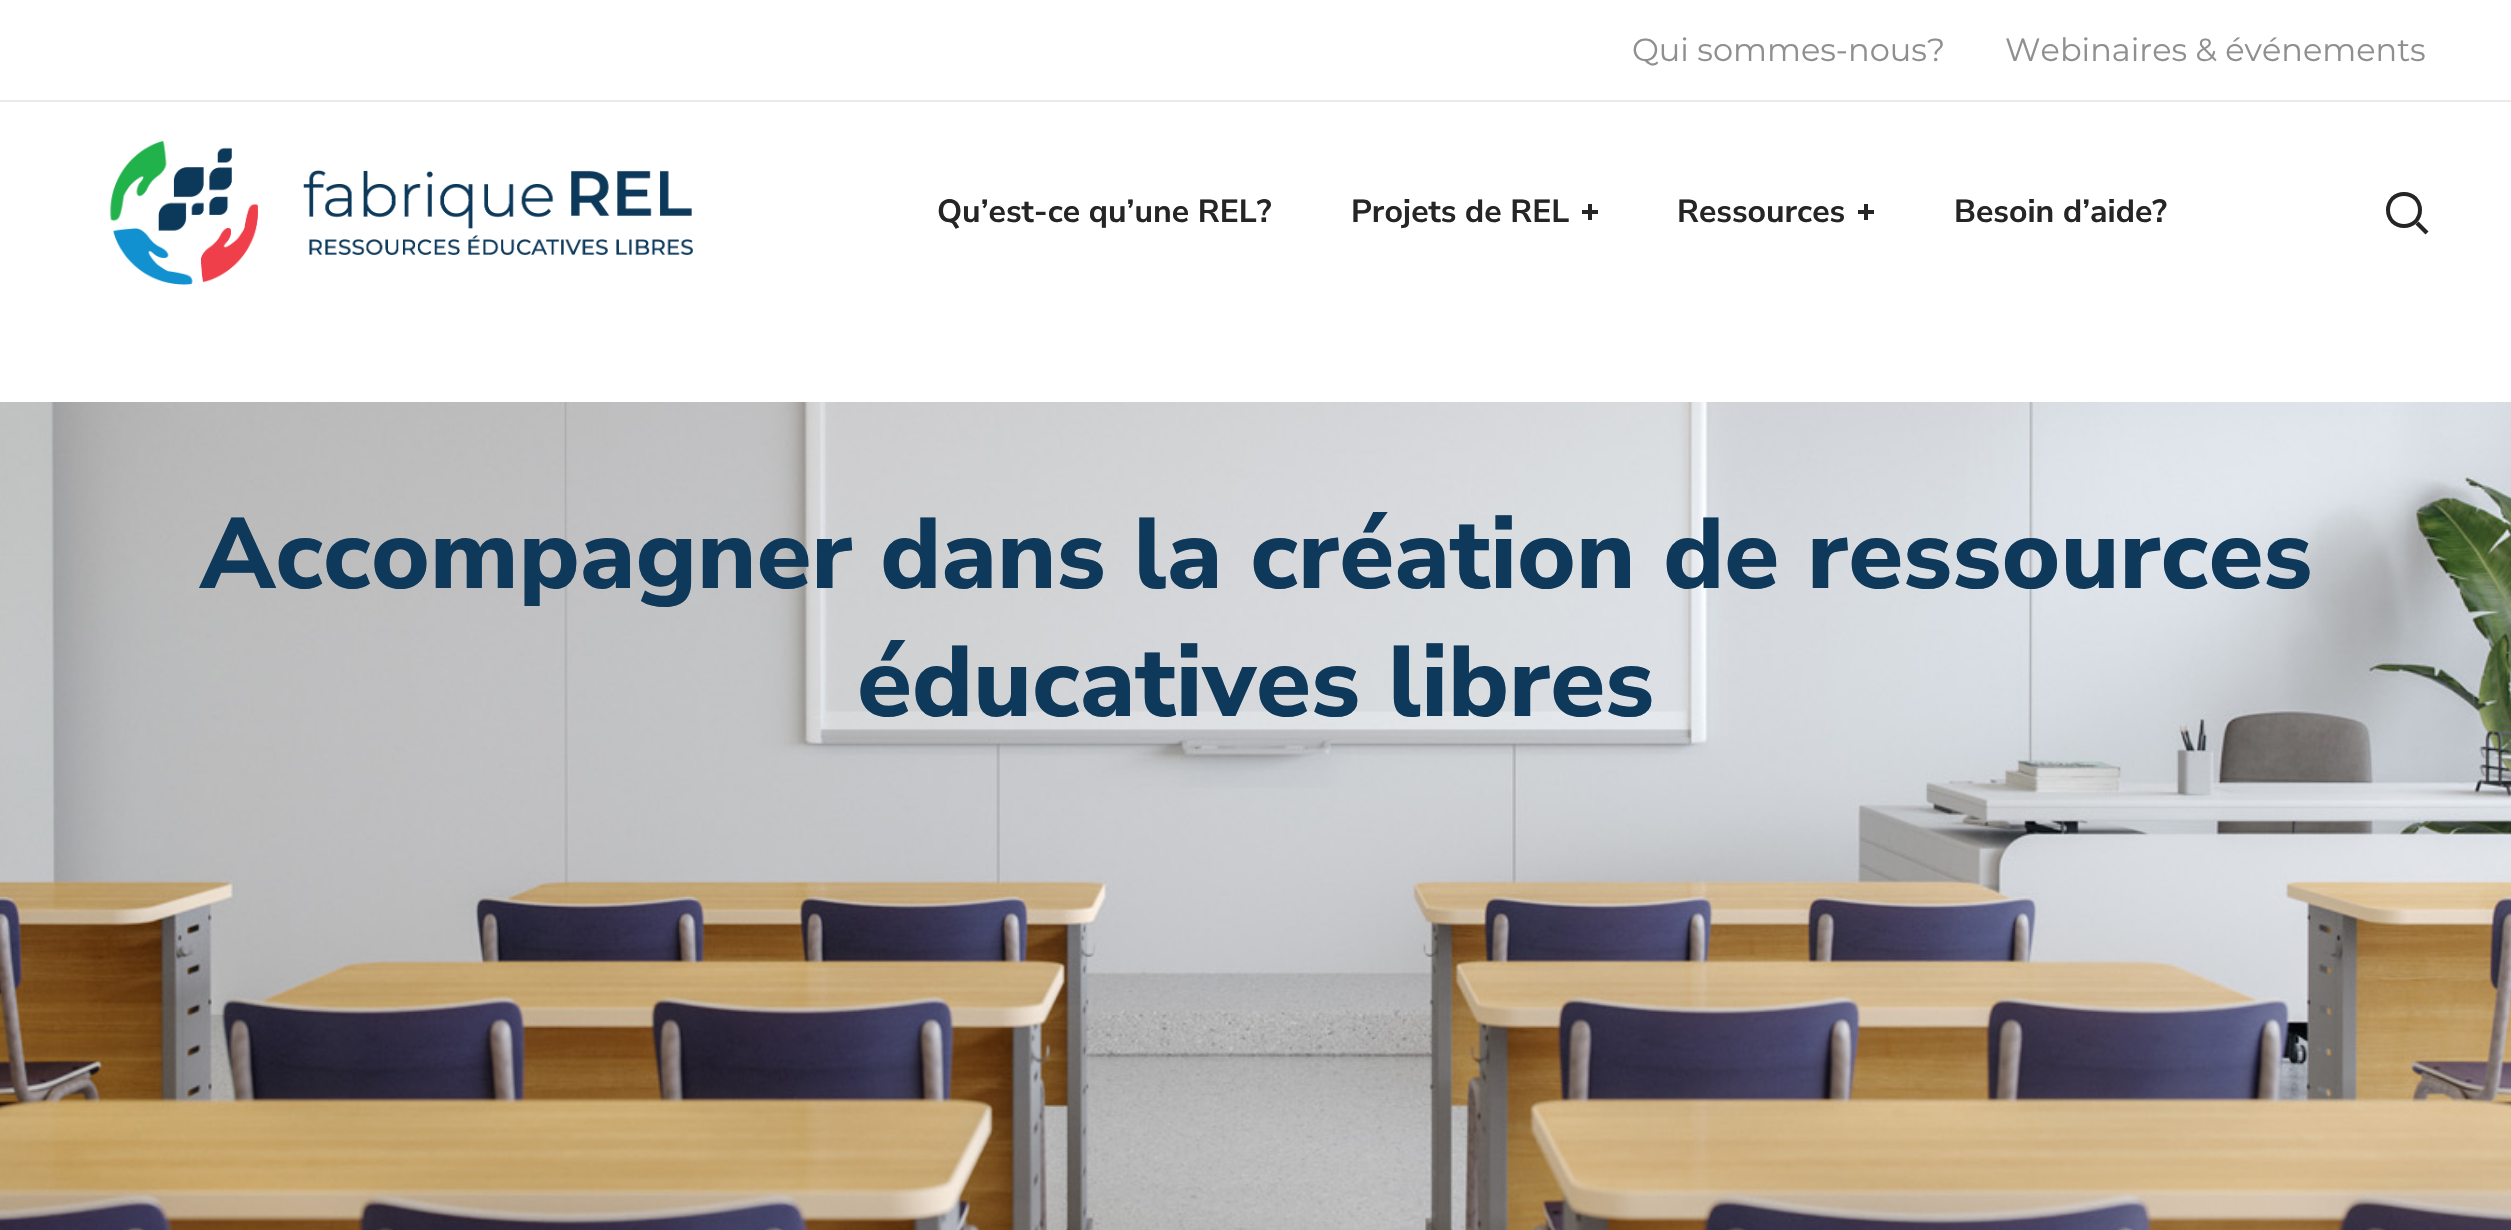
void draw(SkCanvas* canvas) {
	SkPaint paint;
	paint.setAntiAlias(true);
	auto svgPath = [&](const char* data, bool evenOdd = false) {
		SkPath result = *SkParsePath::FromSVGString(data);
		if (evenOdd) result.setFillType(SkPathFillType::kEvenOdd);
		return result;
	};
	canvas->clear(0xffffffff);
	paint.setColor(0xffeaeaec);
	canvas->drawRect(SkRect::MakeXYWH(0, 100, 2511, 2), paint);
	SkFont f1(fontMgr->matchFamilyStyle("Montserrat", SkFontStyle::Normal()), 32);
	f1.setSubpixel(true);
	paint.setColor(0xff8f8f8f);
	canvas->drawString("Qui sommes-nous?", 1632, 61, f1, paint);
	canvas->drawString("Webinaires & événements", 2005, 61, f1, paint);
	canvas->drawImageRect(SkImages::DeferredFromEncodedData(SkData::MakeFromFileName("img1.png")), SkRect::MakeXYWH(110, 141, 583, 144), SkSamplingOptions());
	SkFont f2(fontMgr->matchFamilyStyle("Nunito Sans", SkFontStyle::Bold()), 32);
	f2.setSubpixel(true);
	paint.setColor(0xff252525);
	canvas->drawString("Qu’est-ce qu’une REL?", 937, 222, f2, paint);
	canvas->drawString("Projets de REL", 1351, 222, f2, paint);
	canvas->drawRect(SkRect::MakeXYWH(1582, 210, 16, 4), paint);
	canvas->drawRect(SkRect::MakeXYWH(1588, 204, 4, 16), paint);
	canvas->drawString("Ressources", 1677, 222, f2, paint);
	canvas->drawRect(SkRect::MakeXYWH(1858, 210, 16, 4), paint);
	canvas->drawRect(SkRect::MakeXYWH(1864, 204, 4, 16), paint);
	canvas->drawString("Besoin d’aide?", 1954, 222, f2, paint);
	paint.setStroke(true);
	paint.setStrokeWidth(4);
	canvas->drawPath(svgPath("M2415.5 198.5C2421.5 205 2421.5 215 2415.5 221.5C2409 227.5 2399 227.5 2392.5 221.5C2386.5 215 2386.5 205 2392.5 198.5C2399 192.5 2409 192.5 2415.5 198.5Z"), paint);
	paint.setStroke(false);
	canvas->drawPath(svgPath("M2415.5 224.5L2418.5 221.5L2428.5 231.5L2425.5 234.5Z"), paint);
	canvas->drawImageRect(SkImages::DeferredFromEncodedData(SkData::MakeFromFileName("img2.png")), SkRect::MakeXYWH(0, 402, 2511, 828), SkSamplingOptions());
	SkFont f3(fontMgr->matchFamilyStyle("Nunito Sans", SkFontStyle(800, SkFontStyle::kNormal_Width, SkFontStyle::kUpright_Slant)), 100);
	f3.setSubpixel(true);
	paint.setColor(0xff0e395b);
	canvas->drawString("Accompagner dans la création de ressources", 200, 588, f3, paint);
	canvas->drawString("éducatives libres", 857, 716, f3, paint);
}
